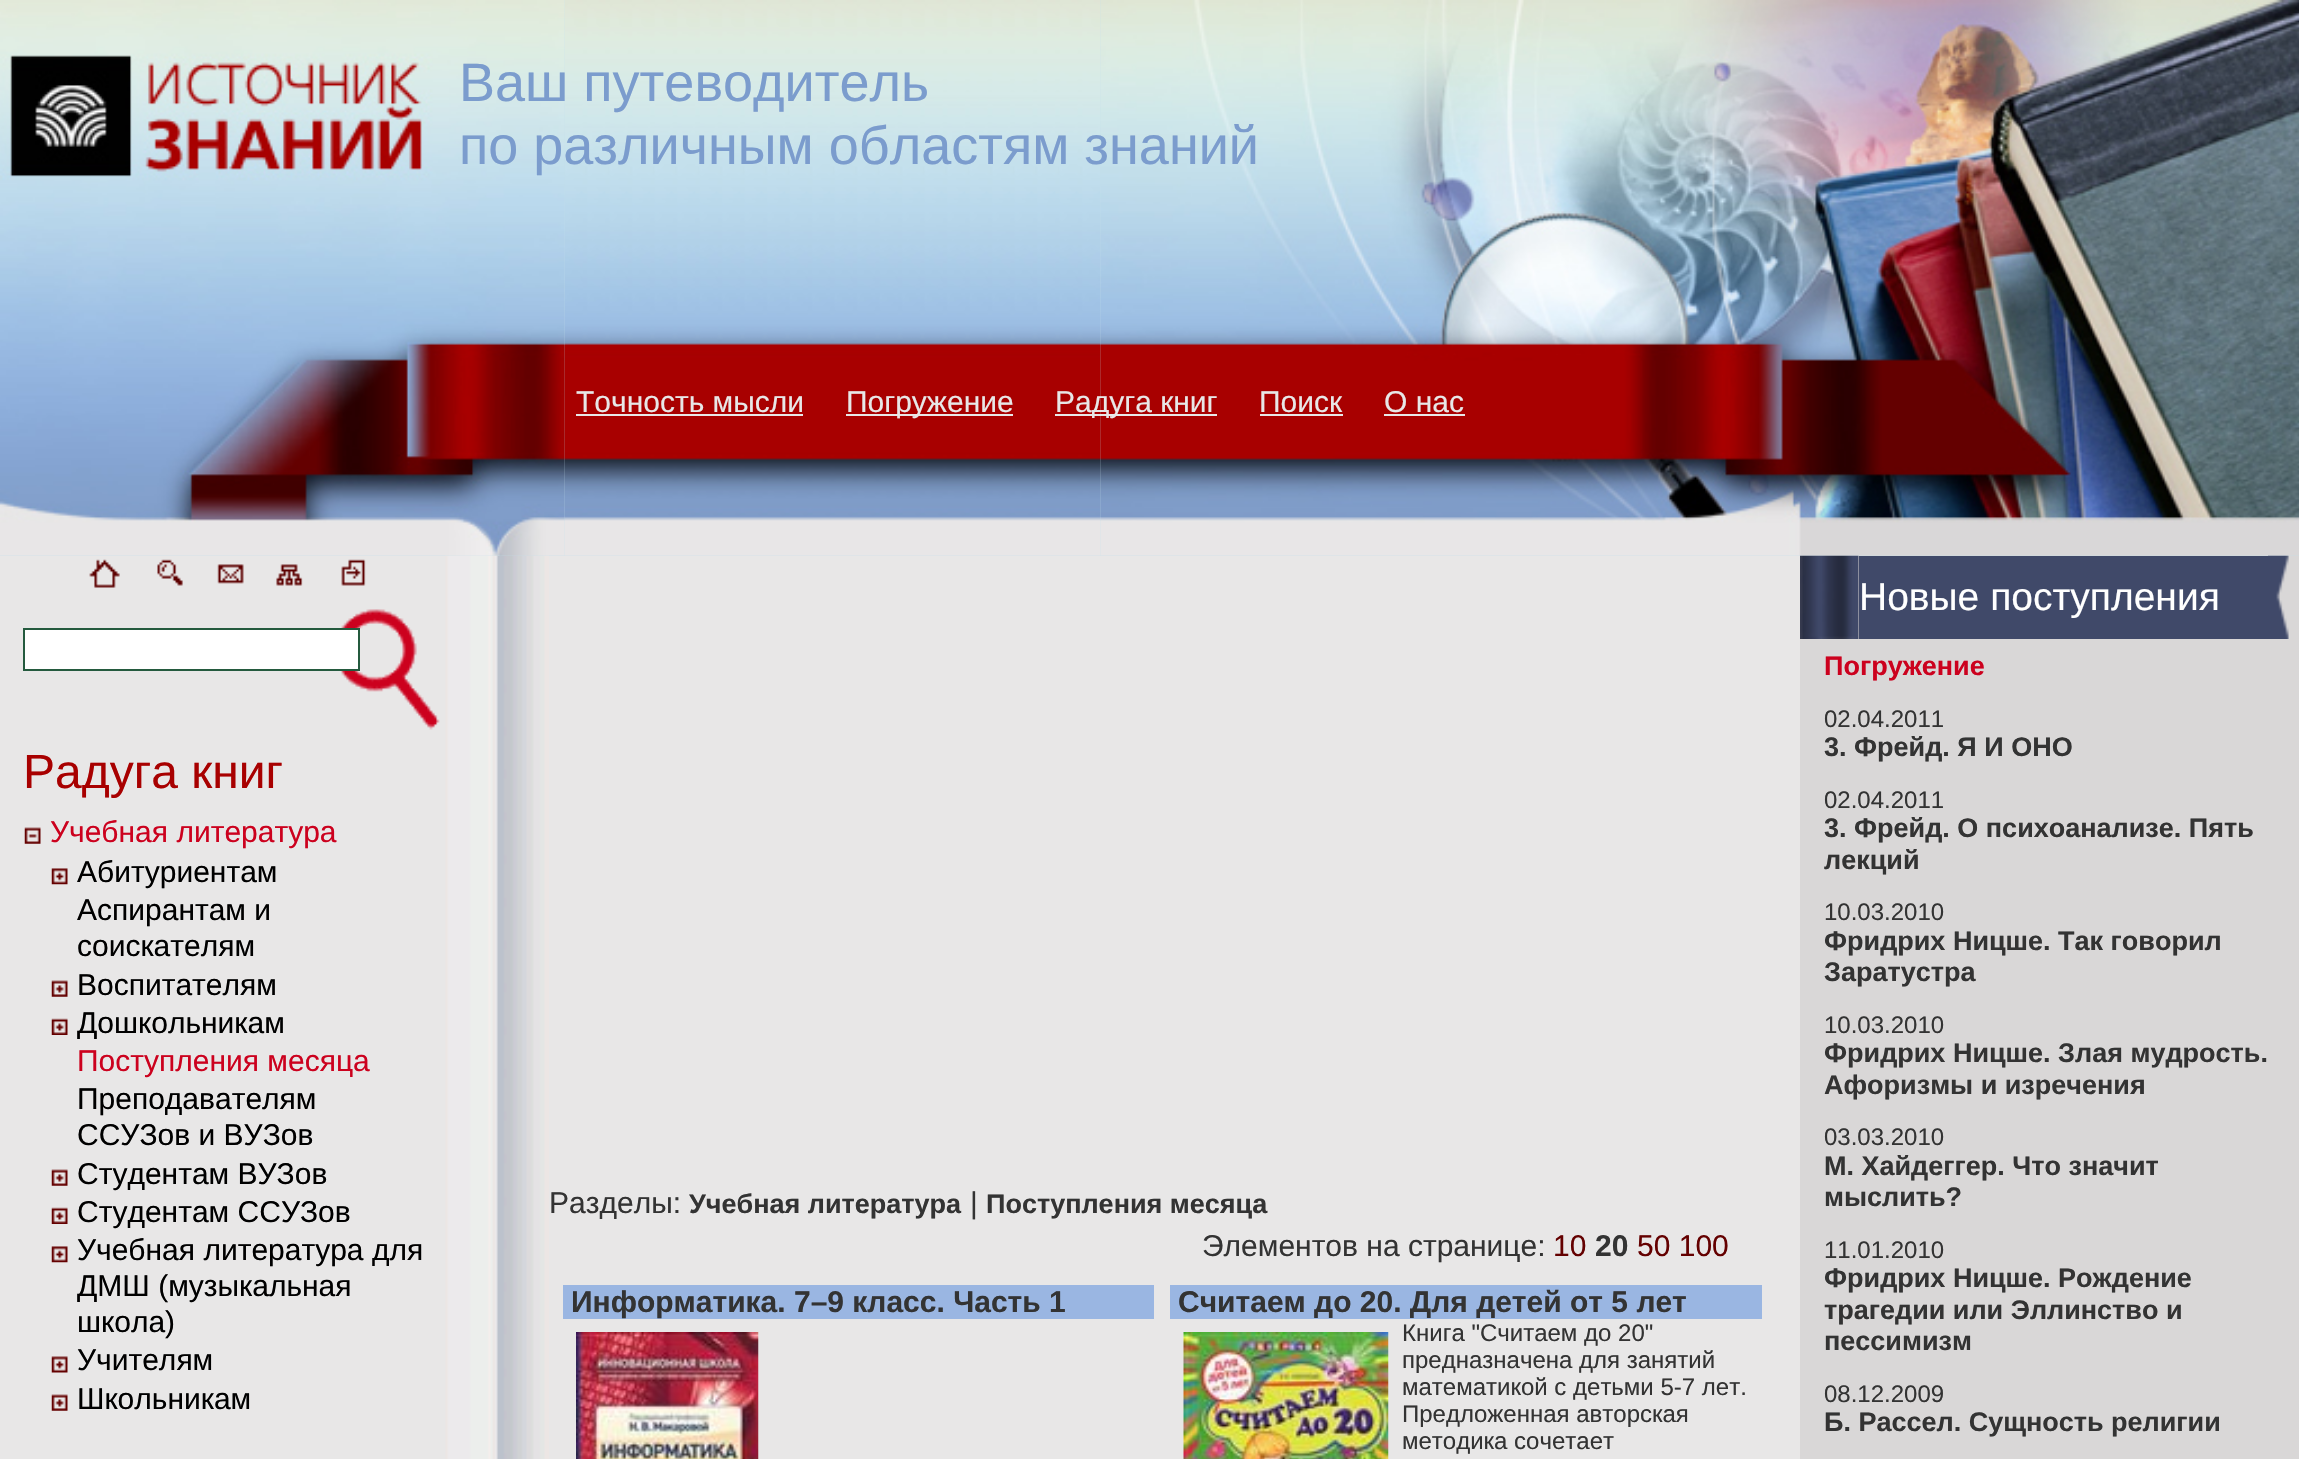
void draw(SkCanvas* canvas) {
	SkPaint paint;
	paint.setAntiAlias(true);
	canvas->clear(0xffe8e7e7);
	paint.setColor(0xffc3dfeb);
	canvas->drawRect(SkRect::MakeXYWH(0, 0, 2299, 556), paint);
	canvas->drawImageRect(SkImages::DeferredFromEncodedData(SkData::MakeFromFileName("img2.png")), SkRect::MakeXYWH(564, 0, 537, 556), SkSamplingOptions());
	canvas->drawImageRect(SkImages::DeferredFromEncodedData(SkData::MakeFromFileName("img16.png")), SkRect::MakeXYWH(445, 555, 104, 904), SkSamplingOptions());
	canvas->drawImageRect(SkImages::DeferredFromEncodedData(SkData::MakeFromFileName("img1.png")), SkRect::MakeXYWH(0, 0, 565, 556), SkSamplingOptions());
	canvas->drawImageRect(SkImages::DeferredFromEncodedData(SkData::MakeFromFileName("img3.png")), SkRect::MakeXYWH(1100, 0, 1199, 556), SkSamplingOptions());
	SkFont f1(fontMgr->matchFamilyStyle("Liberation Sans", SkFontStyle::Normal()), 54);
	f1.setSubpixel(true);
	paint.setColor(0xff7b9ccd);
	canvas->drawString("Ваш путеводитель", 459, 101, f1, paint);
	canvas->drawString("по различным областям знаний", 459, 164, f1, paint);
	SkFont f2(fontMgr->matchFamilyStyle("Liberation Sans", SkFontStyle::Normal()), 30);
	f2.setSubpixel(true);
	paint.setColor(0xffe8e7e7);
	canvas->drawString("Точность мысли", 576, 412, f2, paint);
	canvas->drawRect(SkRect::MakeXYWH(576, 414, 227, 2), paint);
	canvas->drawRect(SkRect::MakeXYWH(846, 414, 167, 2), paint);
	canvas->drawString("Погружение", 846, 412, f2, paint);
	canvas->drawRect(SkRect::MakeXYWH(1055, 414, 162, 2), paint);
	canvas->drawString("Радуга книг", 1055, 412, f2, paint);
	canvas->drawString("Поиск", 1259, 412, f2, paint);
	canvas->drawRect(SkRect::MakeXYWH(1260, 414, 83, 2), paint);
	canvas->drawString("О нас", 1384, 412, f2, paint);
	canvas->drawRect(SkRect::MakeXYWH(1384, 414, 81, 2), paint);
	canvas->drawImageRect(SkImages::DeferredFromEncodedData(SkData::MakeFromFileName("img4.png")), SkRect::MakeXYWH(89, 559, 31, 29), SkSamplingOptions());
	canvas->drawImageRect(SkImages::DeferredFromEncodedData(SkData::MakeFromFileName("img5.png")), SkRect::MakeXYWH(157, 559, 26, 27), SkSamplingOptions());
	canvas->drawImageRect(SkImages::DeferredFromEncodedData(SkData::MakeFromFileName("img6.png")), SkRect::MakeXYWH(217, 564, 27, 20), SkSamplingOptions());
	canvas->drawImageRect(SkImages::DeferredFromEncodedData(SkData::MakeFromFileName("img7.png")), SkRect::MakeXYWH(276, 564, 27, 22), SkSamplingOptions());
	canvas->drawImageRect(SkImages::DeferredFromEncodedData(SkData::MakeFromFileName("img8.png")), SkRect::MakeXYWH(341, 559, 25, 27), SkSamplingOptions());
	canvas->drawImageRect(SkImages::DeferredFromEncodedData(SkData::MakeFromFileName("img9.png")), SkRect::MakeXYWH(340, 609, 100, 121), SkSamplingOptions());
	paint.setColor(0xffffffff);
	canvas->drawRect(SkRect::MakeXYWH(24, 629, 335, 41), paint);
	paint.setStroke(true);
	paint.setStrokeWidth(2);
	paint.setColor(0xff245a3e);
	canvas->drawRect(SkRect::MakeXYWH(24, 629, 335, 41), paint);
	SkFont f3(fontMgr->matchFamilyStyle("Liberation Sans", SkFontStyle::Normal()), 48);
	f3.setSubpixel(true);
	paint.setStroke(false);
	paint.setColor(0xffa80000);
	canvas->drawString("Радуга книг", 23, 788, f3, paint);
	canvas->drawImageRect(SkImages::DeferredFromEncodedData(SkData::MakeFromFileName("img10.png")), SkRect::MakeXYWH(24, 827, 17, 17), SkSamplingOptions());
	paint.setColor(0xffcc011e);
	canvas->drawString("Учебная литература", 50, 842, f2, paint);
	canvas->drawImageRect(SkImages::DeferredFromEncodedData(SkData::MakeFromFileName("img11.png")), SkRect::MakeXYWH(51, 868, 17, 17), SkSamplingOptions());
	paint.setColor(0xff000000);
	canvas->drawString("Абитуриентам", 77, 882, f2, paint);
	canvas->drawString("Аспирантам и", 77, 920, f2, paint);
	canvas->drawString("соискателям", 77, 956, f2, paint);
	canvas->drawImageRect(SkImages::DeferredFromEncodedData(SkData::MakeFromFileName("img12.png")), SkRect::MakeXYWH(51, 980, 17, 17), SkSamplingOptions());
	canvas->drawString("Воспитателям", 77, 995, f2, paint);
	canvas->drawImageRect(SkImages::DeferredFromEncodedData(SkData::MakeFromFileName("img13.png")), SkRect::MakeXYWH(51, 1018, 17, 17), SkSamplingOptions());
	canvas->drawString("Дошкольникам", 77, 1033, f2, paint);
	paint.setColor(0xffcc011e);
	canvas->drawString("Поступления месяца", 77, 1071, f2, paint);
	paint.setColor(0xff000000);
	canvas->drawString("Преподавателям", 77, 1109, f2, paint);
	canvas->drawString("ССУЗов и ВУЗов", 77, 1145, f2, paint);
	canvas->drawImageRect(SkImages::DeferredFromEncodedData(SkData::MakeFromFileName("img14.png")), SkRect::MakeXYWH(51, 1169, 17, 17), SkSamplingOptions());
	canvas->drawString("Студентам ВУЗов", 77, 1184, f2, paint);
	canvas->drawImageRect(SkImages::DeferredFromEncodedData(SkData::MakeFromFileName("img13.png")), SkRect::MakeXYWH(51, 1207, 17, 17), SkSamplingOptions());
	canvas->drawString("Студентам ССУЗов", 77, 1222, f2, paint);
	canvas->drawImageRect(SkImages::DeferredFromEncodedData(SkData::MakeFromFileName("img11.png")), SkRect::MakeXYWH(51, 1246, 17, 17), SkSamplingOptions());
	canvas->drawString("Учебная литература для", 77, 1260, f2, paint);
	canvas->drawString("ДМШ (музыкальная", 77, 1296, f2, paint);
	canvas->drawString("школа)", 77, 1332, f2, paint);
	canvas->drawImageRect(SkImages::DeferredFromEncodedData(SkData::MakeFromFileName("img15.png")), SkRect::MakeXYWH(51, 1356, 17, 17), SkSamplingOptions());
	canvas->drawString("Учителям", 77, 1370, f2, paint);
	canvas->drawImageRect(SkImages::DeferredFromEncodedData(SkData::MakeFromFileName("img12.png")), SkRect::MakeXYWH(51, 1394, 17, 17), SkSamplingOptions());
	canvas->drawString("Школьникам", 77, 1409, f2, paint);
	canvas->drawImageRect(SkImages::DeferredFromEncodedData(SkData::MakeFromFileName("img17.png")), SkRect::MakeXYWH(493, 555, 4, 1), SkSamplingOptions());
	paint.setColor(0xff333333);
	canvas->drawString("Разделы:", 549, 1213, f2, paint);
	SkFont f4(fontMgr->matchFamilyStyle("Liberation Sans", SkFontStyle::Bold()), 27);
	f4.setSubpixel(true);
	canvas->drawString("Учебная литература", 689, 1213, f4, paint);
	canvas->drawString("|", 970, 1213, f2, paint);
	canvas->drawString("Поступления месяца", 986, 1213, f4, paint);
	canvas->drawString("Элементов на странице:", 1202, 1256, f2, paint);
	paint.setColor(0xff640000);
	canvas->drawString("10", 1553, 1256, f2, paint);
	SkFont f5(fontMgr->matchFamilyStyle("Liberation Sans", SkFontStyle::Bold()), 30);
	f5.setSubpixel(true);
	paint.setColor(0xff333333);
	canvas->drawString("20", 1595, 1256, f5, paint);
	paint.setColor(0xff640000);
	canvas->drawString("50 100", 1637, 1256, f2, paint);
	paint.setColor(0xff9ab6e2);
	canvas->drawRect(SkRect::MakeXYWH(563, 1285, 591, 34), paint);
	paint.setColor(0xff333333);
	canvas->drawString("Информатика. 7–9 класс. Часть 1", 571, 1312, f5, paint);
	canvas->drawImageRect(SkImages::DeferredFromEncodedData(SkData::MakeFromFileName("img18.png")), SkRect::MakeXYWH(576, 1332, 183, 127), SkSamplingOptions());
	paint.setColor(0xff9ab6e2);
	canvas->drawRect(SkRect::MakeXYWH(1170, 1285, 592, 34), paint);
	paint.setColor(0xff333333);
	canvas->drawString("Считаем до 20. Для детей от 5 лет", 1178, 1312, f5, paint);
	canvas->drawImageRect(SkImages::DeferredFromEncodedData(SkData::MakeFromFileName("img19.png")), SkRect::MakeXYWH(1183, 1332, 206, 127), SkSamplingOptions());
	SkFont f6(fontMgr->matchFamilyStyle("Liberation Sans", SkFontStyle::Normal()), 24);
	f6.setSubpixel(true);
	canvas->drawString("Книга \"Считаем до 20\"", 1402, 1341, f6, paint);
	canvas->drawString("предназначена для занятий", 1402, 1368, f6, paint);
	canvas->drawString("математикой с детьми 5-7 лет.", 1402, 1395, f6, paint);
	canvas->drawString("Предложенная авторская", 1402, 1422, f6, paint);
	canvas->drawString("методика сочетает", 1402, 1449, f6, paint);
	paint.setColor(0xffd9d7d7);
	canvas->drawRect(SkRect::MakeXYWH(1800, 556, 499, 903), paint);
	canvas->drawImageRect(SkImages::DeferredFromEncodedData(SkData::MakeFromFileName("img20.png")), SkRect::MakeXYWH(1800, 555, 59, 84), SkSamplingOptions());
	paint.setColor(0xff404969);
	canvas->drawRect(SkRect::MakeXYWH(1859, 556, 409, 83), paint);
	SkFont f7(fontMgr->matchFamilyStyle("Liberation Sans", SkFontStyle::Normal()), 39);
	f7.setSubpixel(true);
	paint.setColor(0xffffffff);
	canvas->drawString("Новые поступления", 1859, 610, f7, paint);
	canvas->drawImageRect(SkImages::DeferredFromEncodedData(SkData::MakeFromFileName("img21.png")), SkRect::MakeXYWH(2268, 555, 21, 84), SkSamplingOptions());
	paint.setColor(0xffcc011e);
	canvas->drawString("Погружение", 1824, 675, f4, paint);
	paint.setColor(0xff333333);
	canvas->drawString("02.04.2011", 1824, 727, f6, paint);
	canvas->drawString("3. Фрейд. Я И ОНО", 1824, 756, f4, paint);
	canvas->drawString("02.04.2011", 1824, 808, f6, paint);
	canvas->drawString("3. Фрейд. О психоанализе. Пять", 1824, 837, f4, paint);
	canvas->drawString("лекций", 1824, 869, f4, paint);
	canvas->drawString("10.03.2010", 1824, 920, f6, paint);
	canvas->drawString("Фридрих Ницше. Так говорил", 1824, 950, f4, paint);
	canvas->drawString("Заратустра", 1824, 981, f4, paint);
	canvas->drawString("10.03.2010", 1824, 1033, f6, paint);
	canvas->drawString("Фридрих Ницше. Злая мудрость.", 1824, 1062, f4, paint);
	canvas->drawString("Афоризмы и изречения", 1824, 1094, f4, paint);
	canvas->drawString("03.03.2010", 1824, 1145, f6, paint);
	canvas->drawString("М. Хайдеггер. Что значит", 1824, 1175, f4, paint);
	canvas->drawString("мыслить?", 1824, 1206, f4, paint);
	canvas->drawString("11.01.2010", 1824, 1258, f6, paint);
	canvas->drawString("Фридрих Ницше. Рождение", 1824, 1287, f4, paint);
	canvas->drawString("трагедии или Эллинство и", 1824, 1319, f4, paint);
	canvas->drawString("пессимизм", 1824, 1350, f4, paint);
	canvas->drawString("08.12.2009", 1824, 1402, f6, paint);
	canvas->drawString("Б. Рассел. Сущность религии", 1824, 1431, f4, paint);
}
